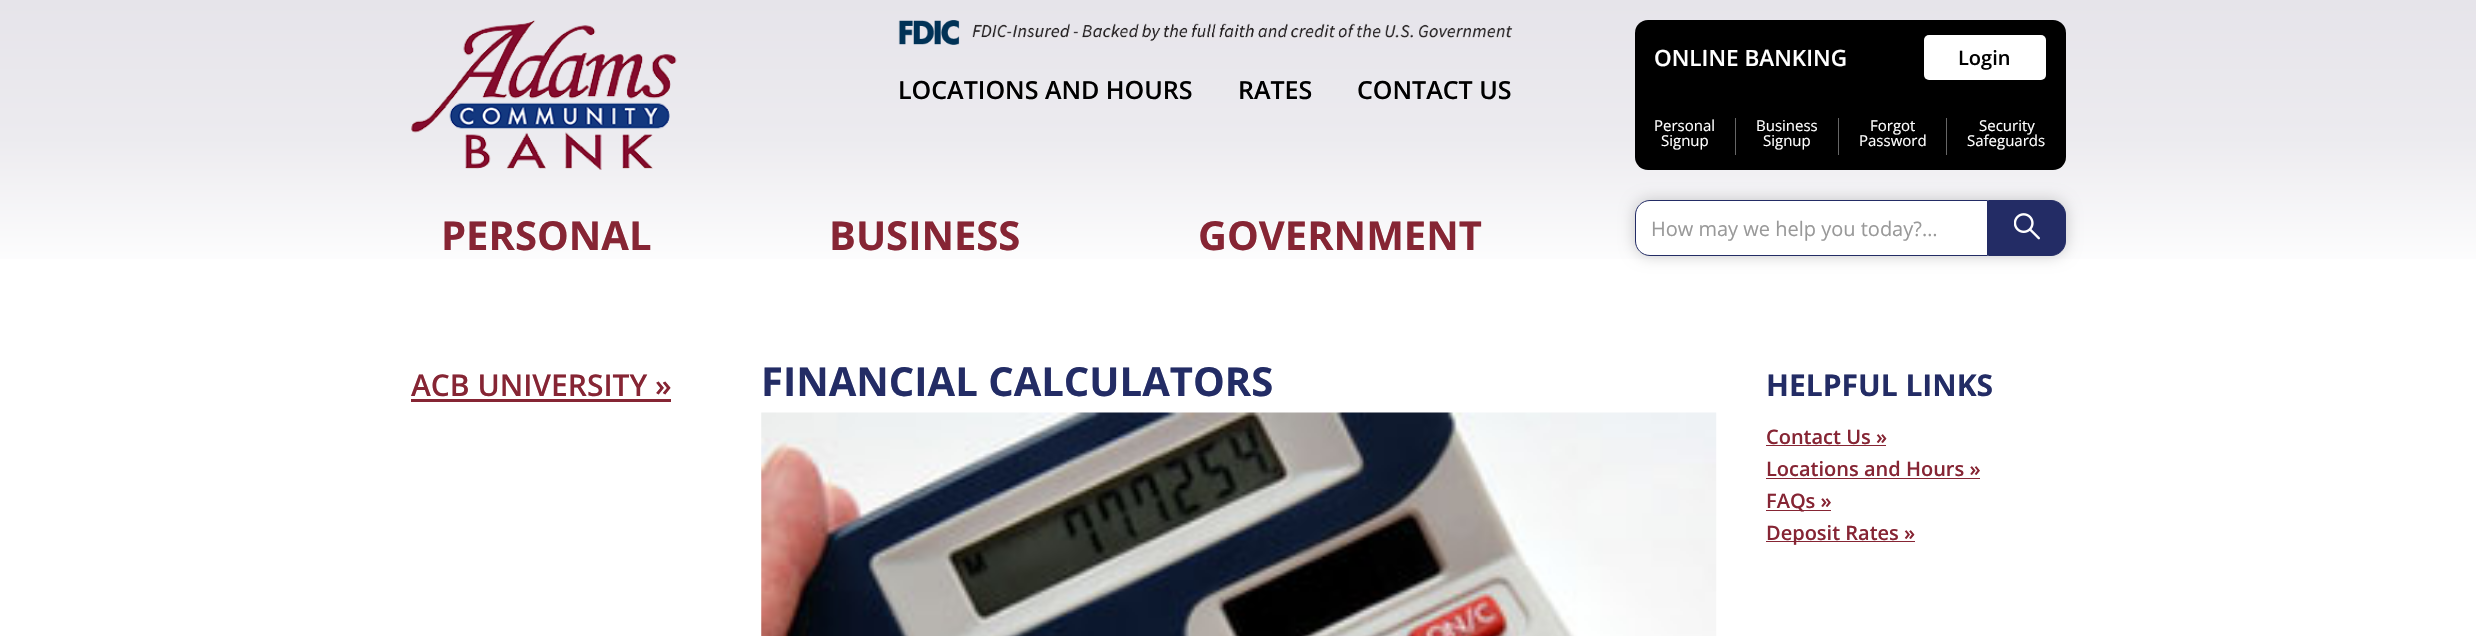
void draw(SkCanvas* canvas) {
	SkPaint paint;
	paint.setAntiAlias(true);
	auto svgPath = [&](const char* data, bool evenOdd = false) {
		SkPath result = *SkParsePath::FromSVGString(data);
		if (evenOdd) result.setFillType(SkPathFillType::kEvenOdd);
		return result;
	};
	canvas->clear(0xffffffff);
	{
		const SkColor colors[] = {0xffe6e4ea, 0xffecebef, 0xffffffff};
		const float stops[] = {0, 0.5, 1};
		const SkPoint ends[] = {{1238, 0}, {1238, 276}};
		paint.setShader(SkGradientShader::MakeLinear(ends, colors, stops, 3, SkTileMode::kClamp));
		paint.setAlpha(255);
	}
	canvas->drawRect(SkRect::MakeXYWH(0, 0, 2476, 259), paint);
	canvas->drawImageRect(SkImages::DeferredFromEncodedData(SkData::MakeFromFileName("img1.png")), SkRect::MakeXYWH(411, 20, 266, 150), SkSamplingOptions());
	canvas->drawImageRect(SkImages::DeferredFromEncodedData(SkData::MakeFromFileName("img2.png")), SkRect::MakeXYWH(898, 20, 615, 25), SkSamplingOptions());
	SkFont f1(fontMgr->matchFamilyStyle("Open Sans", SkFontStyle(600, SkFontStyle::kNormal_Width, SkFontStyle::kUpright_Slant)), 25);
	f1.setSubpixel(true);
	paint.setShader(nullptr);
	paint.setColor(0xff000000);
	canvas->drawString("LOCATIONS AND HOURS", 898, 99, f1, paint);
	canvas->drawString("RATES", 1238, 99, f1, paint);
	canvas->drawString("CONTACT US", 1357, 99, f1, paint);
	SkFont f2(fontMgr->matchFamilyStyle("Open Sans", SkFontStyle::Bold()), 40);
	f2.setSubpixel(true);
	paint.setColor(0xff862534);
	canvas->drawString("PERSONAL", 441, 250, f2, paint);
	canvas->drawString("BUSINESS", 829, 250, f2, paint);
	canvas->drawString("GOVERNMENT", 1198, 250, f2, paint);
	paint.setColor(0xff000000);
	canvas->drawRoundRect(SkRect::MakeXYWH(1635, 20, 431, 150), 13, 13, paint);
	SkFont f3(fontMgr->matchFamilyStyle("Open Sans", SkFontStyle(600, SkFontStyle::kNormal_Width, SkFontStyle::kUpright_Slant)), 22.5);
	f3.setSubpixel(true);
	paint.setColor(0xffffffff);
	canvas->drawString("ONLINE BANKING", 1654, 66, f3, paint);
	canvas->drawRoundRect(SkRect::MakeXYWH(1924, 35, 122, 45), 5, 5, paint);
	SkFont f4(fontMgr->matchFamilyStyle("Open Sans", SkFontStyle(600, SkFontStyle::kNormal_Width, SkFontStyle::kUpright_Slant)), 20);
	f4.setSubpixel(true);
	paint.setColor(0xff000000);
	canvas->drawString("Login", 1958, 65, f4, paint);
	SkFont f5(fontMgr->matchFamilyStyle("Open Sans", SkFontStyle::Normal()), 15);
	f5.setSubpixel(true);
	paint.setColor(0xffffffff);
	canvas->drawString("Personal", 1654, 131, f5, paint);
	canvas->drawString("Signup", 1661, 146, f5, paint);
	paint.setColor(0xff666666);
	canvas->drawRect(SkRect::MakeXYWH(1735, 118, 1, 37), paint);
	paint.setColor(0xffffffff);
	canvas->drawString("Business", 1756, 131, f5, paint);
	canvas->drawString("Signup", 1763, 146, f5, paint);
	paint.setColor(0xff666666);
	canvas->drawRect(SkRect::MakeXYWH(1838, 118, 1, 37), paint);
	paint.setColor(0xffffffff);
	canvas->drawString("Forgot", 1870, 131, f5, paint);
	canvas->drawString("Password", 1859, 146, f5, paint);
	paint.setColor(0xff666666);
	canvas->drawRect(SkRect::MakeXYWH(1946, 118, 1, 37), paint);
	paint.setColor(0xffffffff);
	canvas->drawString("Security", 1979, 131, f5, paint);
	canvas->drawString("Safeguards", 1967, 146, f5, paint);
	paint.setColor(0x33000000);
	paint.setMaskFilter(SkMaskFilter::MakeBlur(kNormal_SkBlurStyle, 7.5));
	canvas->drawRoundRect(SkRect::MakeXYWH(1635, 200, 431, 56), 15, 15, paint);
	paint.setMaskFilter(nullptr);
	paint.setColor(0xffffffff);
	canvas->drawPath(svgPath("M1650 200.5H1987.5V255.5H1650C1642 255.5 1635.5 249 1635.5 241V215C1635.5 207 1642 200.5 1650 200.5Z"), paint);
	paint.setStroke(true);
	paint.setStrokeWidth(1);
	paint.setColor(0xff232c65);
	canvas->drawPath(svgPath("M1650 200.5H1987.5V255.5H1650C1642 255.5 1635.5 249 1635.5 241V215C1635.5 207 1642 200.5 1650 200.5Z"), paint);
	SkFont f6(fontMgr->matchFamilyStyle("Open Sans", SkFontStyle::Normal()), 20);
	f6.setSubpixel(true);
	paint.setStroke(false);
	paint.setColor(0xff999999);
	canvas->drawString("How may we help you today?…", 1651, 236, f6, paint);
	paint.setColor(0xff232c65);
	canvas->drawPath(svgPath("M1988.5 200.5H2051C2059 200.5 2065.5 207 2065.5 215V241C2065.5 249 2059 255.5 2051 255.5H1988.5Z"), paint);
	paint.setStroke(true);
	canvas->drawPath(svgPath("M1988.5 200.5H2051C2059 200.5 2065.5 207 2065.5 215V241C2065.5 249 2059 255.5 2051 255.5H1988.5Z"), paint);
	canvas->drawImageRect(SkImages::DeferredFromEncodedData(SkData::MakeFromFileName("img3.png")), SkRect::MakeXYWH(2014, 213, 26, 27), SkSamplingOptions());
	SkFont f7(fontMgr->matchFamilyStyle("Open Sans", SkFontStyle(600, SkFontStyle::kNormal_Width, SkFontStyle::kUpright_Slant)), 30);
	f7.setSubpixel(true);
	paint.setStroke(false);
	paint.setColor(0xff862534);
	canvas->drawString("ACB UNIVERSITY »", 411, 396, f7, paint);
	canvas->drawRect(SkRect::MakeXYWH(411, 399, 260, 3), paint);
	paint.setColor(0xff232c65);
	canvas->drawString("FINANCIAL CALCULATORS", 761, 396, f2, paint);
	canvas->drawImageRect(SkImages::DeferredFromEncodedData(SkData::MakeFromFileName("img4.png")), SkRect::MakeXYWH(761, 412, 956, 224), SkSamplingOptions());
	SkFont f8(fontMgr->matchFamilyStyle("Open Sans", SkFontStyle::Bold()), 30);
	f8.setSubpixel(true);
	canvas->drawString("HELPFUL LINKS", 1766, 396, f8, paint);
	paint.setColor(0xff862534);
	canvas->drawString("Contact Us »", 1766, 444, f4, paint);
	canvas->drawRect(SkRect::MakeXYWH(1766, 445, 120, 1), paint);
	canvas->drawString("Locations and Hours »", 1766, 476, f4, paint);
	canvas->drawRect(SkRect::MakeXYWH(1766, 478, 214, 1), paint);
	canvas->drawRect(SkRect::MakeXYWH(1766, 510, 65, 1), paint);
	canvas->drawString("FAQs »", 1766, 508, f4, paint);
	canvas->drawRect(SkRect::MakeXYWH(1766, 541, 149, 1), paint);
	canvas->drawString("Deposit Rates »", 1766, 540, f4, paint);
}
